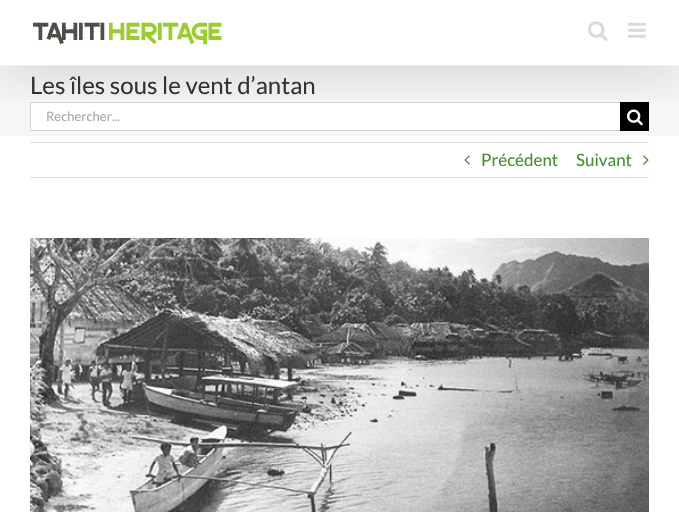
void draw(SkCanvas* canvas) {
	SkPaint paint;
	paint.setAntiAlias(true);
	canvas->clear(0xffffffff);
	paint.setColor(0xfff6f6f6);
	canvas->drawRect(SkRect::MakeXYWH(0, 66, 679, 70), paint);
	paint.setColor(0xffffffff);
	canvas->drawRect(SkRect::MakeXYWH(31, 103, 589, 27), paint);
	paint.setColor(0xffd2d2d2);
	canvas->drawRect(SkRect::MakeXYWH(30, 102, 590, 1), paint);
	canvas->drawRect(SkRect::MakeXYWH(30, 130, 590, 1), paint);
	canvas->drawRect(SkRect::MakeXYWH(30, 102, 1, 29), paint);
	paint.setColor(0xff000000);
	canvas->drawRect(SkRect::MakeXYWH(620, 102, 29, 29), paint);
	canvas->drawImageRect(SkImages::DeferredFromEncodedData(SkData::MakeFromFileName("img4.png")), SkRect::MakeXYWH(627, 109, 16, 17), SkSamplingOptions());
	paint.setColor(0xffe0dede);
	canvas->drawRect(SkRect::MakeXYWH(30, 142, 619, 1), paint);
	canvas->save();
	canvas->clipRect(SkRect::MakeXYWH(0, 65, 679, 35));
	paint.setColor(0x24000000);
	paint.setMaskFilter(SkMaskFilter::MakeBlur(kNormal_SkBlurStyle, 25));
	canvas->drawRect(SkRect::MakeXYWH(2, 12, 675, 61), paint);
	paint.setMaskFilter(nullptr);
	canvas->restore();
	canvas->drawImageRect(SkImages::DeferredFromEncodedData(SkData::MakeFromFileName("img1.png")), SkRect::MakeXYWH(33, 22, 189, 23), SkSamplingOptions());
	canvas->drawImageRect(SkImages::DeferredFromEncodedData(SkData::MakeFromFileName("img2.png")), SkRect::MakeXYWH(588, 21, 20, 20), SkSamplingOptions());
	canvas->drawImageRect(SkImages::DeferredFromEncodedData(SkData::MakeFromFileName("img3.png")), SkRect::MakeXYWH(628, 22, 18, 16), SkSamplingOptions());
	SkFont f1(fontMgr->matchFamilyStyle("Lato", SkFontStyle::Normal()), 24);
	f1.setSubpixel(true);
	paint.setColor(0xff333333);
	canvas->drawString("Les îles sous le vent d’antan", 30, 94, f1, paint);
	SkFont f2(fontMgr->matchFamilyStyle("Lato", SkFontStyle::Normal()), 13);
	f2.setSubpixel(true);
	paint.setColor(0xffaaa9a9);
	canvas->drawString("Rechercher...", 46, 121, f2, paint);
	paint.setColor(0xffe0dede);
	canvas->drawRect(SkRect::MakeXYWH(30, 177, 619, 1), paint);
	canvas->drawImageRect(SkImages::DeferredFromEncodedData(SkData::MakeFromFileName("img5.png")), SkRect::MakeXYWH(464, 155, 6, 10), SkSamplingOptions());
	SkFont f3(fontMgr->matchFamilyStyle("Lato", SkFontStyle::Normal()), 17);
	f3.setSubpixel(true);
	paint.setColor(0xff448e30);
	canvas->drawString("Précédent", 481, 166, f3, paint);
	canvas->drawString("Suivant", 576, 166, f3, paint);
	canvas->drawImageRect(SkImages::DeferredFromEncodedData(SkData::MakeFromFileName("img6.png")), SkRect::MakeXYWH(643, 155, 6, 10), SkSamplingOptions());
	canvas->drawImageRect(SkImages::DeferredFromEncodedData(SkData::MakeFromFileName("img7.png")), SkRect::MakeXYWH(30, 238, 619, 274), SkSamplingOptions());
}
